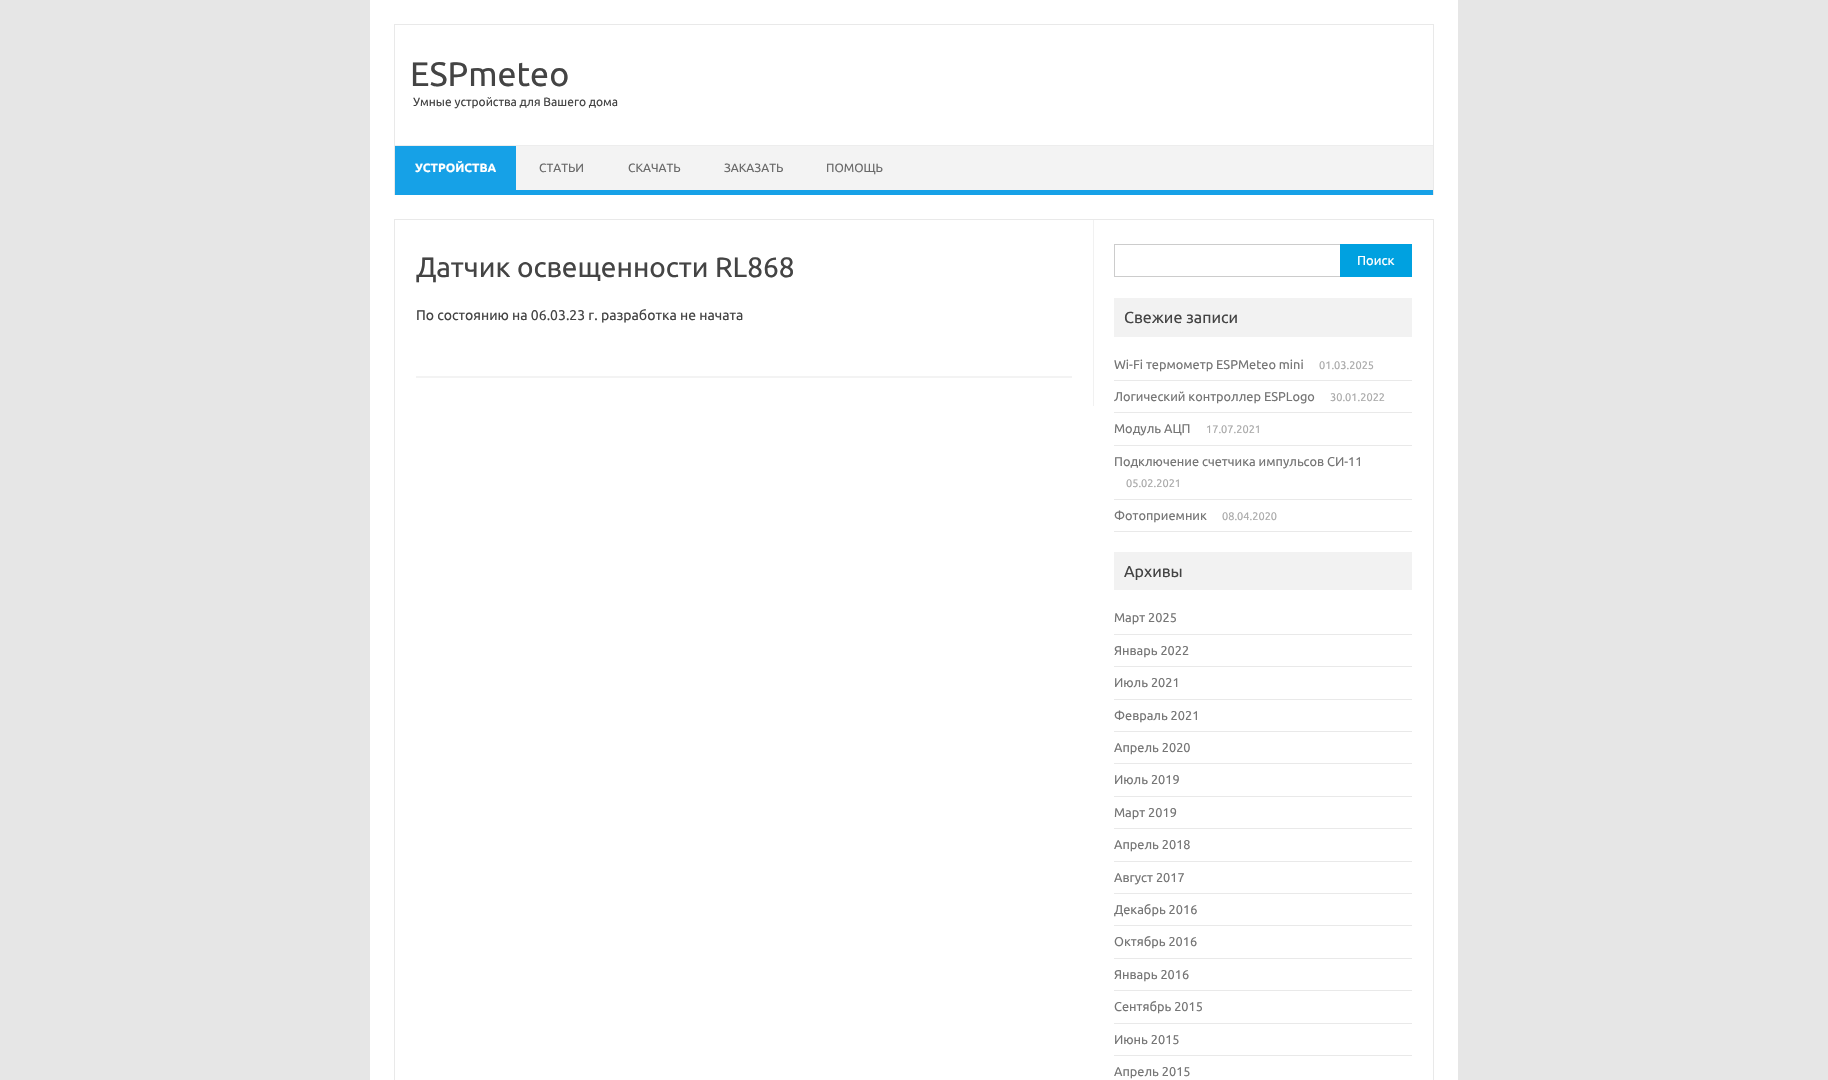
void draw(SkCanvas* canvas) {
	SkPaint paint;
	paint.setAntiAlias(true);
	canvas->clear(0xffe6e6e6);
	paint.setColor(0xffffffff);
	canvas->drawRect(SkRect::MakeXYWH(370, 0, 1088, 1080), paint);
	paint.setColor(0xffe9e9e9);
	canvas->drawRect(SkRect::MakeXYWH(394, 24, 1040, 1), paint);
	canvas->drawRect(SkRect::MakeXYWH(1433, 24, 1, 171), paint);
	canvas->drawRect(SkRect::MakeXYWH(394, 24, 1, 171), paint);
	SkFont f1(fontMgr->matchFamilyStyle("Ubuntu", SkFontStyle::Normal()), 34);
	f1.setSubpixel(true);
	paint.setColor(0xff444444);
	canvas->drawString("ESPmeteo", 410, 86, f1, paint);
	SkFont f2(fontMgr->matchFamilyStyle("Ubuntu", SkFontStyle::Normal()), 12);
	f2.setSubpixel(true);
	canvas->drawString("Умные устройства для Вашего дома", 413, 106, f2, paint);
	paint.setColor(0xfff3f3f3);
	canvas->drawRect(SkRect::MakeXYWH(516, 146, 917, 44), paint);
	paint.setColor(0xffededed);
	canvas->drawRect(SkRect::MakeXYWH(395, 145, 1038, 1), paint);
	paint.setColor(0xff16a1e7);
	canvas->drawRect(SkRect::MakeXYWH(395, 190, 1038, 5), paint);
	canvas->drawRect(SkRect::MakeXYWH(395, 146, 121, 44), paint);
	SkFont f3(fontMgr->matchFamilyStyle("Ubuntu", SkFontStyle::Bold()), 12);
	f3.setSubpixel(true);
	paint.setColor(0xffffffff);
	canvas->drawString("УСТРОЙСТВА", 415, 172, f3, paint);
	paint.setColor(0xff6a6a6a);
	canvas->drawString("СТАТЬИ", 539, 172, f2, paint);
	canvas->drawString("СКАЧАТЬ", 628, 172, f2, paint);
	canvas->drawString("ЗАКАЗАТЬ", 724, 172, f2, paint);
	canvas->drawString("ПОМОЩЬ", 826, 172, f2, paint);
	paint.setStroke(true);
	paint.setStrokeWidth(1);
	paint.setColor(0xffe9e9e9);
	canvas->drawRect(SkRect::MakeXYWH(394.5, 219.5, 1039, 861), paint);
	paint.setStroke(false);
	paint.setColor(0xfff1f1f1);
	canvas->drawRect(SkRect::MakeXYWH(1093, 220, 1, 186), paint);
	paint.setColor(0xfff3f3f3);
	canvas->drawRect(SkRect::MakeXYWH(416, 376, 656, 2), paint);
	SkFont f4(fontMgr->matchFamilyStyle("Ubuntu", SkFontStyle::Normal()), 28);
	f4.setSubpixel(true);
	paint.setColor(0xff444444);
	canvas->drawString("Датчик освещенности RL868", 416, 277, f4, paint);
	SkFont f5(fontMgr->matchFamilyStyle("Ubuntu", SkFontStyle::Normal()), 14);
	f5.setSubpixel(true);
	canvas->drawString("По состоянию на 06.03.23 г. разработка не начата", 416, 320, f5, paint);
	paint.setStroke(true);
	paint.setColor(0xffcccccc);
	canvas->drawRect(SkRect::MakeXYWH(1114.5, 244.5, 227, 32), paint);
	paint.setStroke(false);
	paint.setColor(0xff00a1e0);
	canvas->drawRect(SkRect::MakeXYWH(1340, 244, 72, 33), paint);
	SkFont f6(fontMgr->matchFamilyStyle("Ubuntu", SkFontStyle::Normal()), 13);
	f6.setSubpixel(true);
	paint.setColor(0xffffffff);
	canvas->drawString("Поиск", 1357, 265, f6, paint);
	paint.setColor(0xfff2f2f2);
	canvas->drawRect(SkRect::MakeXYWH(1114, 298, 298, 39), paint);
	SkFont f7(fontMgr->matchFamilyStyle("Ubuntu", SkFontStyle::Normal()), 16);
	f7.setSubpixel(true);
	paint.setColor(0xff444444);
	canvas->drawString("Свежие записи", 1124, 323, f7, paint);
	paint.setColor(0xffe9e9e9);
	canvas->drawRect(SkRect::MakeXYWH(1114, 380, 298, 1), paint);
	SkFont f8(fontMgr->matchFamilyStyle("Ubuntu", SkFontStyle::Normal()), 12.75);
	f8.setSubpixel(true);
	paint.setColor(0xff757575);
	canvas->drawString("Wi-Fi термометр ESPMeteo mini", 1114, 369, f8, paint);
	SkFont f9(fontMgr->matchFamilyStyle("Ubuntu", SkFontStyle::Normal()), 11);
	f9.setSubpixel(true);
	paint.setColor(0xffaaaaaa);
	canvas->drawString("01.03.2025", 1319, 369, f9, paint);
	paint.setColor(0xffe9e9e9);
	canvas->drawRect(SkRect::MakeXYWH(1114, 412, 298, 1), paint);
	paint.setColor(0xff757575);
	canvas->drawString("Логический контроллер ESPLogo", 1114, 401, f8, paint);
	paint.setColor(0xffaaaaaa);
	canvas->drawString("30.01.2022", 1330, 401, f9, paint);
	paint.setColor(0xffe9e9e9);
	canvas->drawRect(SkRect::MakeXYWH(1114, 445, 298, 1), paint);
	paint.setColor(0xff757575);
	canvas->drawString("Модуль АЦП", 1114, 433, f8, paint);
	paint.setColor(0xffaaaaaa);
	canvas->drawString("17.07.2021", 1206, 433, f9, paint);
	paint.setColor(0xffe9e9e9);
	canvas->drawRect(SkRect::MakeXYWH(1114, 499, 298, 1), paint);
	paint.setColor(0xff757575);
	canvas->drawString("Подключение счетчика импульсов СИ-11", 1114, 466, f8, paint);
	paint.setColor(0xffaaaaaa);
	canvas->drawString("05.02.2021", 1126, 487, f9, paint);
	paint.setColor(0xffe9e9e9);
	canvas->drawRect(SkRect::MakeXYWH(1114, 531, 298, 1), paint);
	paint.setColor(0xff757575);
	canvas->drawString("Фотоприемник", 1114, 520, f8, paint);
	paint.setColor(0xffaaaaaa);
	canvas->drawString("08.04.2020", 1222, 520, f9, paint);
	paint.setColor(0xfff2f2f2);
	canvas->drawRect(SkRect::MakeXYWH(1114, 552, 298, 38), paint);
	paint.setColor(0xff444444);
	canvas->drawString("Архивы", 1124, 577, f7, paint);
	paint.setColor(0xffe9e9e9);
	canvas->drawRect(SkRect::MakeXYWH(1114, 634, 298, 1), paint);
	paint.setColor(0xff757575);
	canvas->drawString("Март 2025", 1114, 622, f8, paint);
	paint.setColor(0xffe9e9e9);
	canvas->drawRect(SkRect::MakeXYWH(1114, 666, 298, 1), paint);
	paint.setColor(0xff757575);
	canvas->drawString("Январь 2022", 1114, 655, f8, paint);
	paint.setColor(0xffe9e9e9);
	canvas->drawRect(SkRect::MakeXYWH(1114, 699, 298, 1), paint);
	paint.setColor(0xff757575);
	canvas->drawString("Июль 2021", 1114, 687, f8, paint);
	paint.setColor(0xffe9e9e9);
	canvas->drawRect(SkRect::MakeXYWH(1114, 731, 298, 1), paint);
	paint.setColor(0xff757575);
	canvas->drawString("Февраль 2021", 1114, 720, f8, paint);
	paint.setColor(0xffe9e9e9);
	canvas->drawRect(SkRect::MakeXYWH(1114, 763, 298, 1), paint);
	paint.setColor(0xff757575);
	canvas->drawString("Апрель 2020", 1114, 752, f8, paint);
	paint.setColor(0xffe9e9e9);
	canvas->drawRect(SkRect::MakeXYWH(1114, 796, 298, 1), paint);
	paint.setColor(0xff757575);
	canvas->drawString("Июль 2019", 1114, 784, f8, paint);
	paint.setColor(0xffe9e9e9);
	canvas->drawRect(SkRect::MakeXYWH(1114, 828, 298, 1), paint);
	paint.setColor(0xff757575);
	canvas->drawString("Март 2019", 1114, 817, f8, paint);
	paint.setColor(0xffe9e9e9);
	canvas->drawRect(SkRect::MakeXYWH(1114, 861, 298, 1), paint);
	paint.setColor(0xff757575);
	canvas->drawString("Апрель 2018", 1114, 849, f8, paint);
	paint.setColor(0xffe9e9e9);
	canvas->drawRect(SkRect::MakeXYWH(1114, 893, 298, 1), paint);
	paint.setColor(0xff757575);
	canvas->drawString("Август 2017", 1114, 882, f8, paint);
	paint.setColor(0xffe9e9e9);
	canvas->drawRect(SkRect::MakeXYWH(1114, 925, 298, 1), paint);
	paint.setColor(0xff757575);
	canvas->drawString("Декабрь 2016", 1114, 914, f8, paint);
	paint.setColor(0xffe9e9e9);
	canvas->drawRect(SkRect::MakeXYWH(1114, 958, 298, 1), paint);
	paint.setColor(0xff757575);
	canvas->drawString("Октябрь 2016", 1114, 946, f8, paint);
	paint.setColor(0xffe9e9e9);
	canvas->drawRect(SkRect::MakeXYWH(1114, 990, 298, 1), paint);
	paint.setColor(0xff757575);
	canvas->drawString("Январь 2016", 1114, 979, f8, paint);
	paint.setColor(0xffe9e9e9);
	canvas->drawRect(SkRect::MakeXYWH(1114, 1023, 298, 1), paint);
	paint.setColor(0xff757575);
	canvas->drawString("Сентябрь 2015", 1114, 1011, f8, paint);
	paint.setColor(0xffe9e9e9);
	canvas->drawRect(SkRect::MakeXYWH(1114, 1055, 298, 1), paint);
	paint.setColor(0xff757575);
	canvas->drawString("Июнь 2015", 1114, 1044, f8, paint);
	canvas->drawString("Апрель 2015", 1114, 1076, f8, paint);
}
